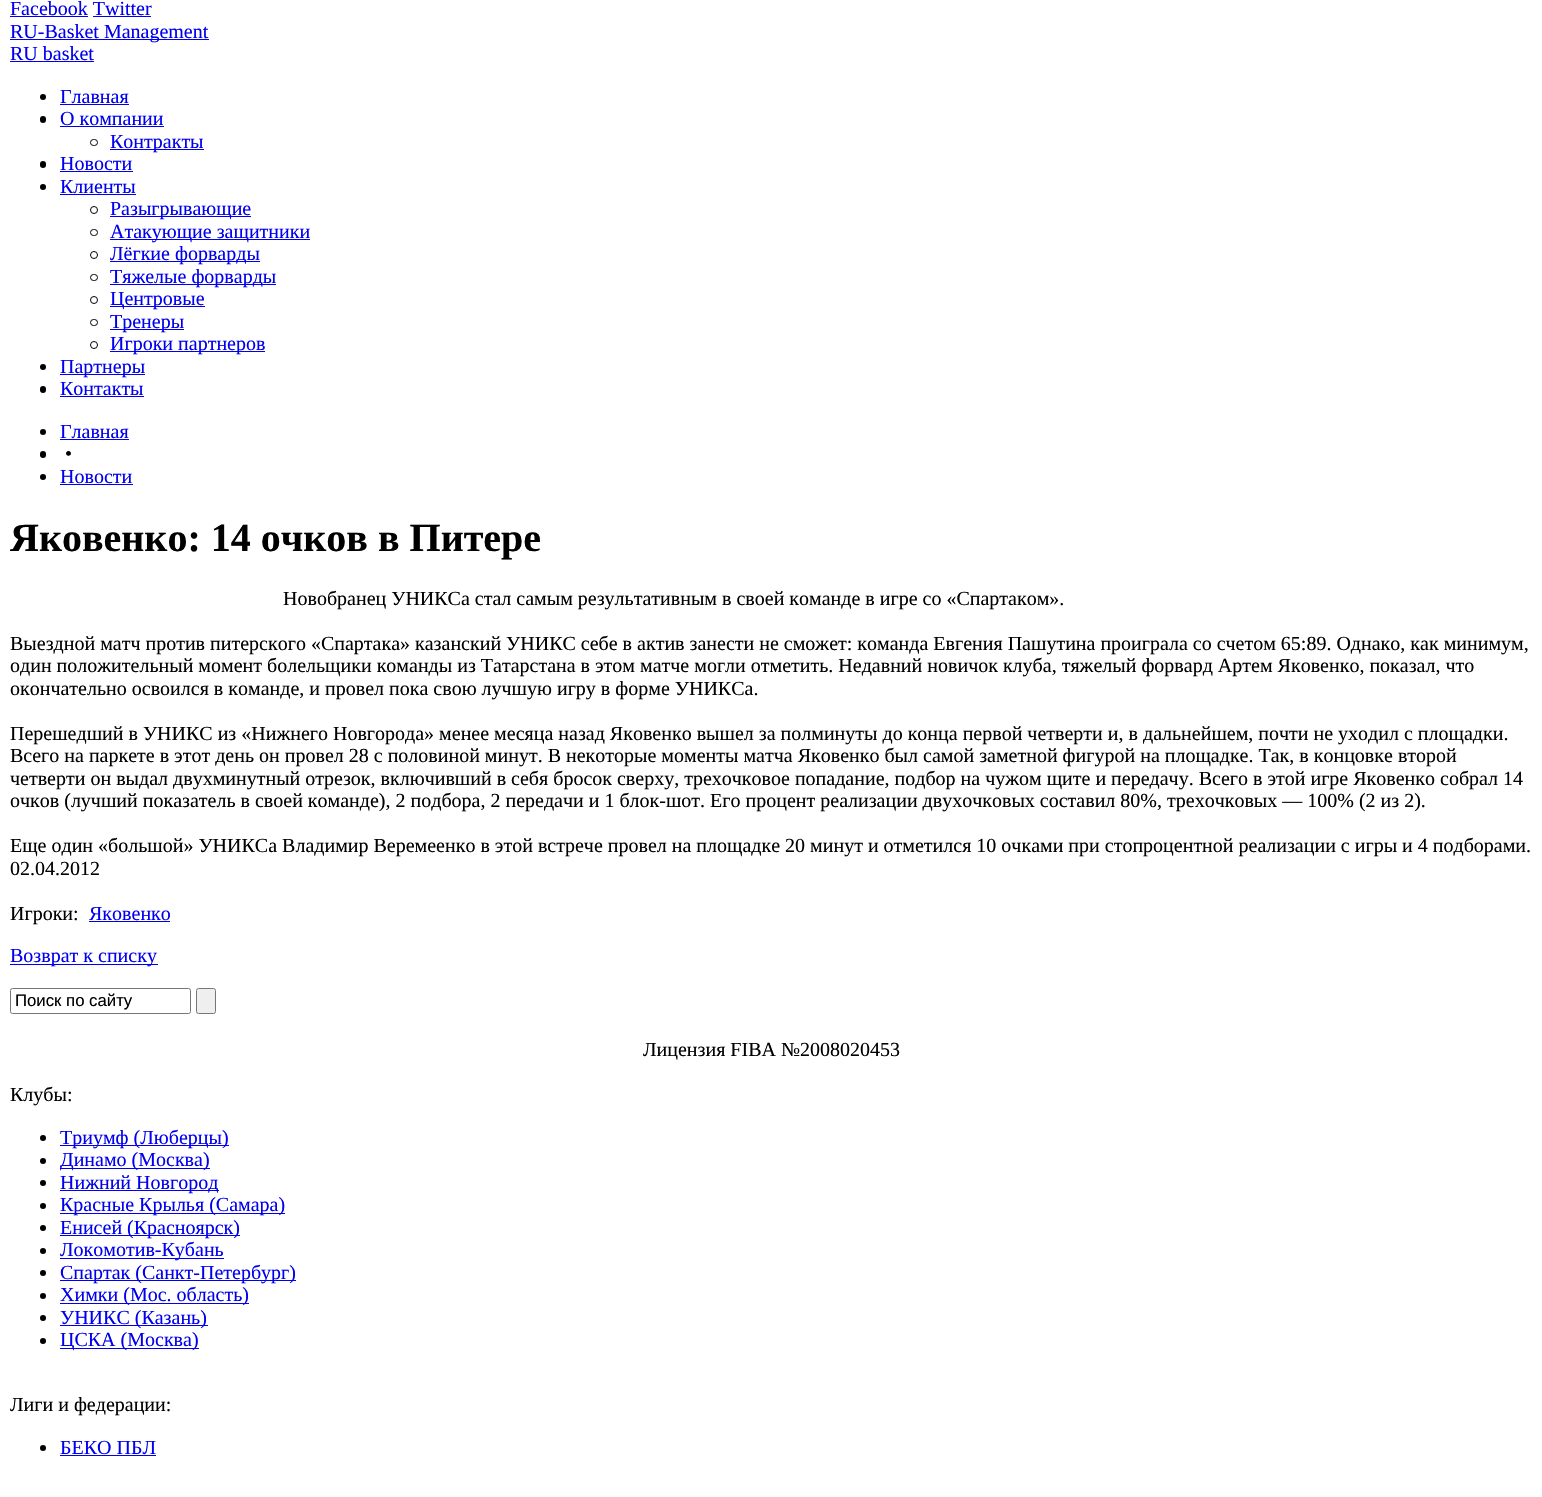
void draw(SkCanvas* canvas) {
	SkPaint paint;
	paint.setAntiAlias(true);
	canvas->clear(0xffffffff);
	SkFont f1(fontMgr->matchFamilyStyle("Liberation Serif", SkFontStyle::Normal()), 20);
	f1.setSubpixel(true);
	paint.setColor(0xff0000ee);
	canvas->drawString("Facebook Twitter", 10, 15, f1, paint);
	canvas->drawRect(SkRect::MakeXYWH(10, 16, 78, 1), paint);
	canvas->drawRect(SkRect::MakeXYWH(93, 16, 58, 1), paint);
	canvas->drawRect(SkRect::MakeXYWH(10, 39, 199, 1), paint);
	canvas->drawString("RU-Basket Management", 10, 38, f1, paint);
	canvas->drawString("RU basket", 10, 60, f1, paint);
	canvas->drawRect(SkRect::MakeXYWH(10, 61, 84, 1), paint);
	paint.setColor(0xff000000);
	canvas->drawCircle(43, 97, 3, paint);
	paint.setColor(0xff0000ee);
	canvas->drawString("Главная", 60, 103, f1, paint);
	canvas->drawRect(SkRect::MakeXYWH(60, 104, 69, 1), paint);
	paint.setColor(0xff000000);
	canvas->drawRoundRect(SkRect::MakeXYWH(40, 116, 6, 7), 3, 3, paint);
	paint.setColor(0xff0000ee);
	canvas->drawString("О компании", 60, 125, f1, paint);
	canvas->drawRect(SkRect::MakeXYWH(60, 126, 104, 1), paint);
	paint.setStroke(true);
	paint.setStrokeWidth(1);
	paint.setColor(0xff000000);
	canvas->drawRoundRect(SkRect::MakeXYWH(90.5, 139.5, 7, 6), 3, 3, paint);
	paint.setStroke(false);
	paint.setColor(0xff0000ee);
	canvas->drawRect(SkRect::MakeXYWH(110, 149, 94, 1), paint);
	canvas->drawString("Контракты", 110, 148, f1, paint);
	paint.setColor(0xff000000);
	canvas->drawRoundRect(SkRect::MakeXYWH(40, 161, 6, 7), 3, 3, paint);
	paint.setColor(0xff0000ee);
	canvas->drawString("Новости", 60, 170, f1, paint);
	canvas->drawRect(SkRect::MakeXYWH(60, 171, 73, 1), paint);
	paint.setColor(0xff000000);
	canvas->drawCircle(43, 187, 3, paint);
	paint.setColor(0xff0000ee);
	canvas->drawString("Клиенты", 60, 193, f1, paint);
	canvas->drawRect(SkRect::MakeXYWH(60, 194, 76, 1), paint);
	paint.setStroke(true);
	paint.setColor(0xff000000);
	canvas->drawCircle(94, 210, 3.5, paint);
	paint.setStroke(false);
	paint.setColor(0xff0000ee);
	canvas->drawRect(SkRect::MakeXYWH(110, 216, 141, 1), paint);
	canvas->drawString("Разыгрывающие", 110, 215, f1, paint);
	paint.setStroke(true);
	paint.setColor(0xff000000);
	canvas->drawRoundRect(SkRect::MakeXYWH(90.5, 229.5, 7, 6), 3, 3, paint);
	paint.setStroke(false);
	paint.setColor(0xff0000ee);
	canvas->drawRect(SkRect::MakeXYWH(110, 239, 200, 1), paint);
	canvas->drawString("Атакующие защитники", 110, 238, f1, paint);
	paint.setStroke(true);
	paint.setColor(0xff000000);
	canvas->drawCircle(94, 255, 3.5, paint);
	paint.setStroke(false);
	paint.setColor(0xff0000ee);
	canvas->drawRect(SkRect::MakeXYWH(110, 261, 150, 1), paint);
	canvas->drawString("Лёгкие форварды", 110, 260, f1, paint);
	paint.setStroke(true);
	paint.setColor(0xff000000);
	canvas->drawRoundRect(SkRect::MakeXYWH(90.5, 274.5, 7, 6), 3, 3, paint);
	paint.setStroke(false);
	paint.setColor(0xff0000ee);
	canvas->drawRect(SkRect::MakeXYWH(110, 284, 166, 1), paint);
	canvas->drawString("Тяжелые форварды", 110, 283, f1, paint);
	paint.setStroke(true);
	paint.setColor(0xff000000);
	canvas->drawCircle(94, 300, 3.5, paint);
	paint.setStroke(false);
	paint.setColor(0xff0000ee);
	canvas->drawRect(SkRect::MakeXYWH(110, 306, 95, 1), paint);
	canvas->drawString("Центровые", 110, 305, f1, paint);
	paint.setStroke(true);
	paint.setColor(0xff000000);
	canvas->drawRoundRect(SkRect::MakeXYWH(90.5, 319.5, 7, 6), 3, 3, paint);
	paint.setStroke(false);
	paint.setColor(0xff0000ee);
	canvas->drawRect(SkRect::MakeXYWH(110, 329, 74, 1), paint);
	canvas->drawString("Тренеры", 110, 328, f1, paint);
	paint.setStroke(true);
	paint.setColor(0xff000000);
	canvas->drawCircle(94, 345, 3.5, paint);
	paint.setStroke(false);
	paint.setColor(0xff0000ee);
	canvas->drawRect(SkRect::MakeXYWH(110, 351, 155, 1), paint);
	canvas->drawString("Игроки партнеров", 110, 350, f1, paint);
	paint.setColor(0xff000000);
	canvas->drawCircle(43, 367, 3, paint);
	paint.setColor(0xff0000ee);
	canvas->drawRect(SkRect::MakeXYWH(60, 374, 85, 1), paint);
	canvas->drawString("Партнеры", 60, 373, f1, paint);
	paint.setColor(0xff000000);
	canvas->drawRoundRect(SkRect::MakeXYWH(40, 386, 6, 7), 3, 3, paint);
	paint.setColor(0xff0000ee);
	canvas->drawString("Контакты", 60, 395, f1, paint);
	canvas->drawRect(SkRect::MakeXYWH(60, 396, 84, 1), paint);
	paint.setColor(0xff000000);
	canvas->drawCircle(43, 432, 3, paint);
	paint.setColor(0xff0000ee);
	canvas->drawString("Главная", 60, 438, f1, paint);
	canvas->drawRect(SkRect::MakeXYWH(60, 439, 69, 1), paint);
	paint.setColor(0xff000000);
	canvas->drawRoundRect(SkRect::MakeXYWH(40, 451, 6, 7), 3, 3, paint);
	canvas->drawString("•", 65, 460, f1, paint);
	canvas->drawCircle(43, 477, 3, paint);
	paint.setColor(0xff0000ee);
	canvas->drawString("Новости", 60, 483, f1, paint);
	canvas->drawRect(SkRect::MakeXYWH(60, 484, 73, 1), paint);
	SkFont f2(fontMgr->matchFamilyStyle("Liberation Serif", SkFontStyle::Bold()), 40);
	f2.setSubpixel(true);
	paint.setColor(0xff000000);
	canvas->drawString("Яковенко: 14 очков в Питере", 10, 551, f2, paint);
	canvas->drawString("Новобранец УНИКСа стал самым результативным в своей команде в игре со «Спартаком».", 283, 605, f1, paint);
	canvas->drawString("Выездной матч против питерского «Спартака» казанский УНИКС себе в актив занести не сможет: команда Евгения Пашутина проиграла со счетом 65:89. Однако, как минимум,", 10, 650, f1, paint);
	canvas->drawString("один положительный момент болельщики команды из Татарстана в этом матче могли отметить. Недавний новичок клуба, тяжелый форвард Артем Яковенко, показал, что", 10, 672, f1, paint);
	canvas->drawString("окончательно освоился в команде, и провел пока свою лучшую игру в форме УНИКСа.", 10, 695, f1, paint);
	canvas->drawString("Перешедший в УНИКС из «Нижнего Новгорода» менее месяца назад Яковенко вышел за полминуты до конца первой четверти и, в дальнейшем, почти не уходил с площадки.", 10, 740, f1, paint);
	canvas->drawString("Всего на паркете в этот день он провел 28 с половиной минут. В некоторые моменты матча Яковенко был самой заметной фигурой на площадке. Так, в концовке второй", 10, 762, f1, paint);
	canvas->drawString("четверти он выдал двухминутный отрезок, включивший в себя бросок сверху, трехочковое попадание, подбор на чужом щите и передачу. Всего в этой игре Яковенко собрал 14", 10, 785, f1, paint);
	canvas->drawString("очков (лучший показатель в своей команде), 2 подбора, 2 передачи и 1 блок-шот. Его процент реализации двухочковых составил 80%, трехочковых — 100% (2 из 2).", 10, 807, f1, paint);
	canvas->drawString("Еще один «большой» УНИКСа Владимир Веремеенко в этой встрече провел на площадке 20 минут и отметился 10 очками при стопроцентной реализации с игры и 4 подборами.", 10, 852, f1, paint);
	canvas->drawString("02.04.2012", 10, 875, f1, paint);
	canvas->drawString("Игроки:", 10, 920, f1, paint);
	paint.setColor(0xff0000ee);
	canvas->drawString("Яковенко", 89, 920, f1, paint);
	canvas->drawRect(SkRect::MakeXYWH(89, 921, 81, 1), paint);
	canvas->drawRect(SkRect::MakeXYWH(10, 964, 148, 1), paint);
	canvas->drawString("Возврат к списку", 10, 962, f1, paint);
	paint.setStroke(true);
	paint.setColor(0xff767676);
	canvas->drawRoundRect(SkRect::MakeXYWH(10.5, 988.5, 180, 25), 2, 2, paint);
	SkFont f3(fontMgr->matchFamilyStyle("Liberation Sans", SkFontStyle::Normal()), 16.75);
	f3.setSubpixel(true);
	paint.setStroke(false);
	paint.setColor(0xff000000);
	canvas->drawString("Поиск по сайту", 15, 1006, f3, paint);
	paint.setColor(0xffefefef);
	canvas->drawRoundRect(SkRect::MakeXYWH(196.5, 988.5, 19, 25), 2, 2, paint);
	paint.setStroke(true);
	paint.setColor(0xff767676);
	canvas->drawRoundRect(SkRect::MakeXYWH(196.5, 988.5, 19, 25), 2, 2, paint);
	paint.setStroke(false);
	paint.setColor(0xff000000);
	canvas->drawString("Лицензия FIBA №2008020453", 643, 1056, f1, paint);
	canvas->drawString("Клубы:", 10, 1101, f1, paint);
	canvas->drawCircle(43, 1138, 3, paint);
	paint.setColor(0xff0000ee);
	canvas->drawRect(SkRect::MakeXYWH(60, 1145, 169, 1), paint);
	canvas->drawString("Триумф (Люберцы)", 60, 1144, f1, paint);
	paint.setColor(0xff000000);
	canvas->drawCircle(43, 1161, 3, paint);
	paint.setColor(0xff0000ee);
	canvas->drawRect(SkRect::MakeXYWH(60, 1168, 150, 1), paint);
	canvas->drawString("Динамо (Москва)", 60, 1166, f1, paint);
	paint.setColor(0xff000000);
	canvas->drawCircle(43, 1183, 3, paint);
	paint.setColor(0xff0000ee);
	canvas->drawRect(SkRect::MakeXYWH(60, 1190, 159, 1), paint);
	canvas->drawString("Нижний Новгород", 60, 1189, f1, paint);
	paint.setColor(0xff000000);
	canvas->drawCircle(43, 1206, 3, paint);
	paint.setColor(0xff0000ee);
	canvas->drawRect(SkRect::MakeXYWH(60, 1213, 225, 1), paint);
	canvas->drawString("Красные Крылья (Самара)", 60, 1211, f1, paint);
	paint.setColor(0xff000000);
	canvas->drawCircle(43, 1228, 3, paint);
	paint.setColor(0xff0000ee);
	canvas->drawRect(SkRect::MakeXYWH(60, 1235, 180, 1), paint);
	canvas->drawString("Енисей (Красноярск)", 60, 1234, f1, paint);
	paint.setColor(0xff000000);
	canvas->drawCircle(43, 1251, 3, paint);
	paint.setColor(0xff0000ee);
	canvas->drawRect(SkRect::MakeXYWH(60, 1258, 164, 1), paint);
	canvas->drawString("Локомотив-Кубань", 60, 1256, f1, paint);
	paint.setColor(0xff000000);
	canvas->drawCircle(43, 1273, 3, paint);
	paint.setColor(0xff0000ee);
	canvas->drawRect(SkRect::MakeXYWH(60, 1280, 236, 1), paint);
	canvas->drawString("Спартак (Санкт-Петербург)", 60, 1279, f1, paint);
	paint.setColor(0xff000000);
	canvas->drawCircle(43, 1296, 3, paint);
	paint.setColor(0xff0000ee);
	canvas->drawRect(SkRect::MakeXYWH(60, 1303, 189, 1), paint);
	canvas->drawString("Химки (Мос. область)", 60, 1301, f1, paint);
	paint.setColor(0xff000000);
	canvas->drawCircle(43, 1318, 3, paint);
	paint.setColor(0xff0000ee);
	canvas->drawRect(SkRect::MakeXYWH(60, 1325, 148, 1), paint);
	canvas->drawString("УНИКС (Казань)", 60, 1324, f1, paint);
	paint.setColor(0xff000000);
	canvas->drawCircle(43, 1341, 3, paint);
	paint.setColor(0xff0000ee);
	canvas->drawRect(SkRect::MakeXYWH(60, 1348, 139, 1), paint);
	canvas->drawString("ЦСКА (Москва)", 60, 1346, f1, paint);
	paint.setColor(0xff000000);
	canvas->drawString("Лиги и федерации:", 10, 1411, f1, paint);
	canvas->drawCircle(43, 1448, 3, paint);
	paint.setColor(0xff0000ee);
	canvas->drawString("БЕКО ПБЛ", 60, 1454, f1, paint);
	canvas->drawRect(SkRect::MakeXYWH(60, 1455, 96, 1), paint);
}
